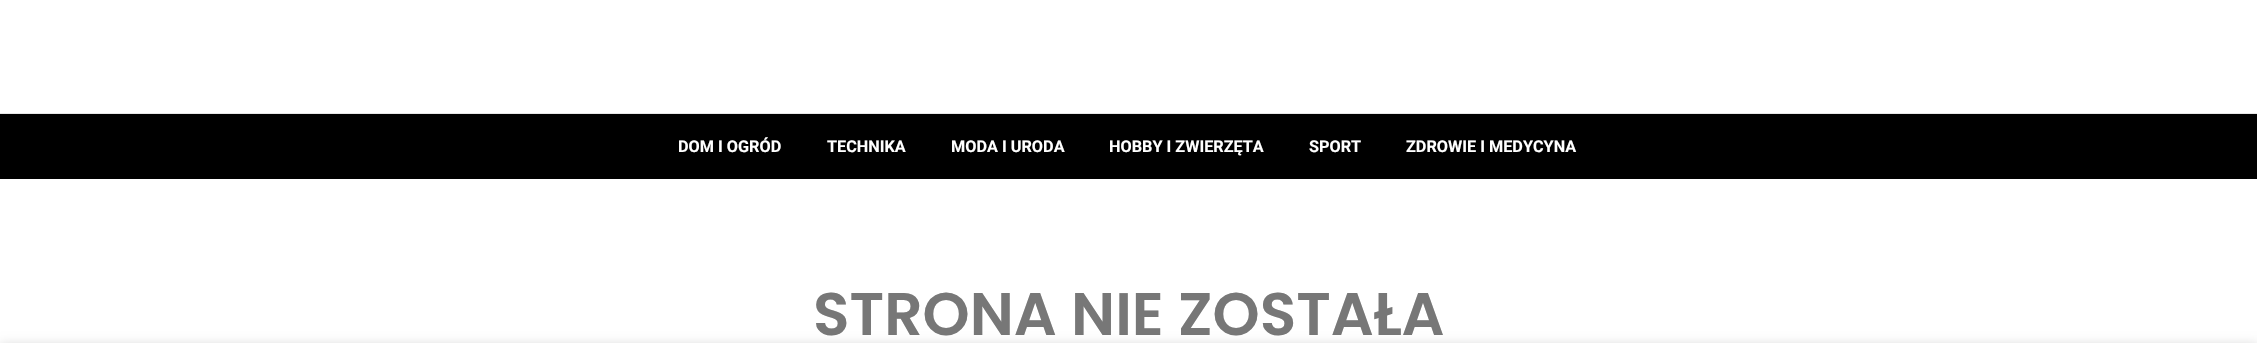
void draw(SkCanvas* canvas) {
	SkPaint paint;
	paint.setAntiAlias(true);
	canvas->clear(0xffffffff);
	paint.setColor(0xffe7e7e7);
	canvas->drawRect(SkRect::MakeXYWH(0, 113, 2257, 1), paint);
	paint.setColor(0xff000000);
	canvas->drawRect(SkRect::MakeXYWH(0, 114, 2257, 65), paint);
	SkFont f1(fontMgr->matchFamilyStyle("Roboto", SkFontStyle::Bold()), 16.25);
	f1.setSubpixel(true);
	paint.setColor(0xffffffff);
	canvas->drawString("DOM I OGRÓD", 678, 152, f1, paint);
	canvas->drawString("TECHNIKA", 827, 152, f1, paint);
	canvas->drawString("MODA I URODA", 951, 152, f1, paint);
	canvas->drawString("HOBBY I ZWIERZĘTA", 1109, 152, f1, paint);
	canvas->drawString("SPORT", 1309, 152, f1, paint);
	canvas->drawString("ZDROWIE I MEDYCYNA", 1406, 152, f1, paint);
	SkFont f2(fontMgr->matchFamilyStyle("Poppins", SkFontStyle(600, SkFontStyle::kNormal_Width, SkFontStyle::kUpright_Slant)), 60);
	f2.setSubpixel(true);
	paint.setColor(0xff777777);
	canvas->drawString("STRONA NIE ZOSTAŁA", 813, 335, f2, paint);
	paint.setColor(0x24000000);
	paint.setMaskFilter(SkMaskFilter::MakeBlur(kNormal_SkBlurStyle, 5.5));
	canvas->drawRect(SkRect::MakeXYWH(0, 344, 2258, 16), paint);
	paint.setMaskFilter(nullptr);
}
